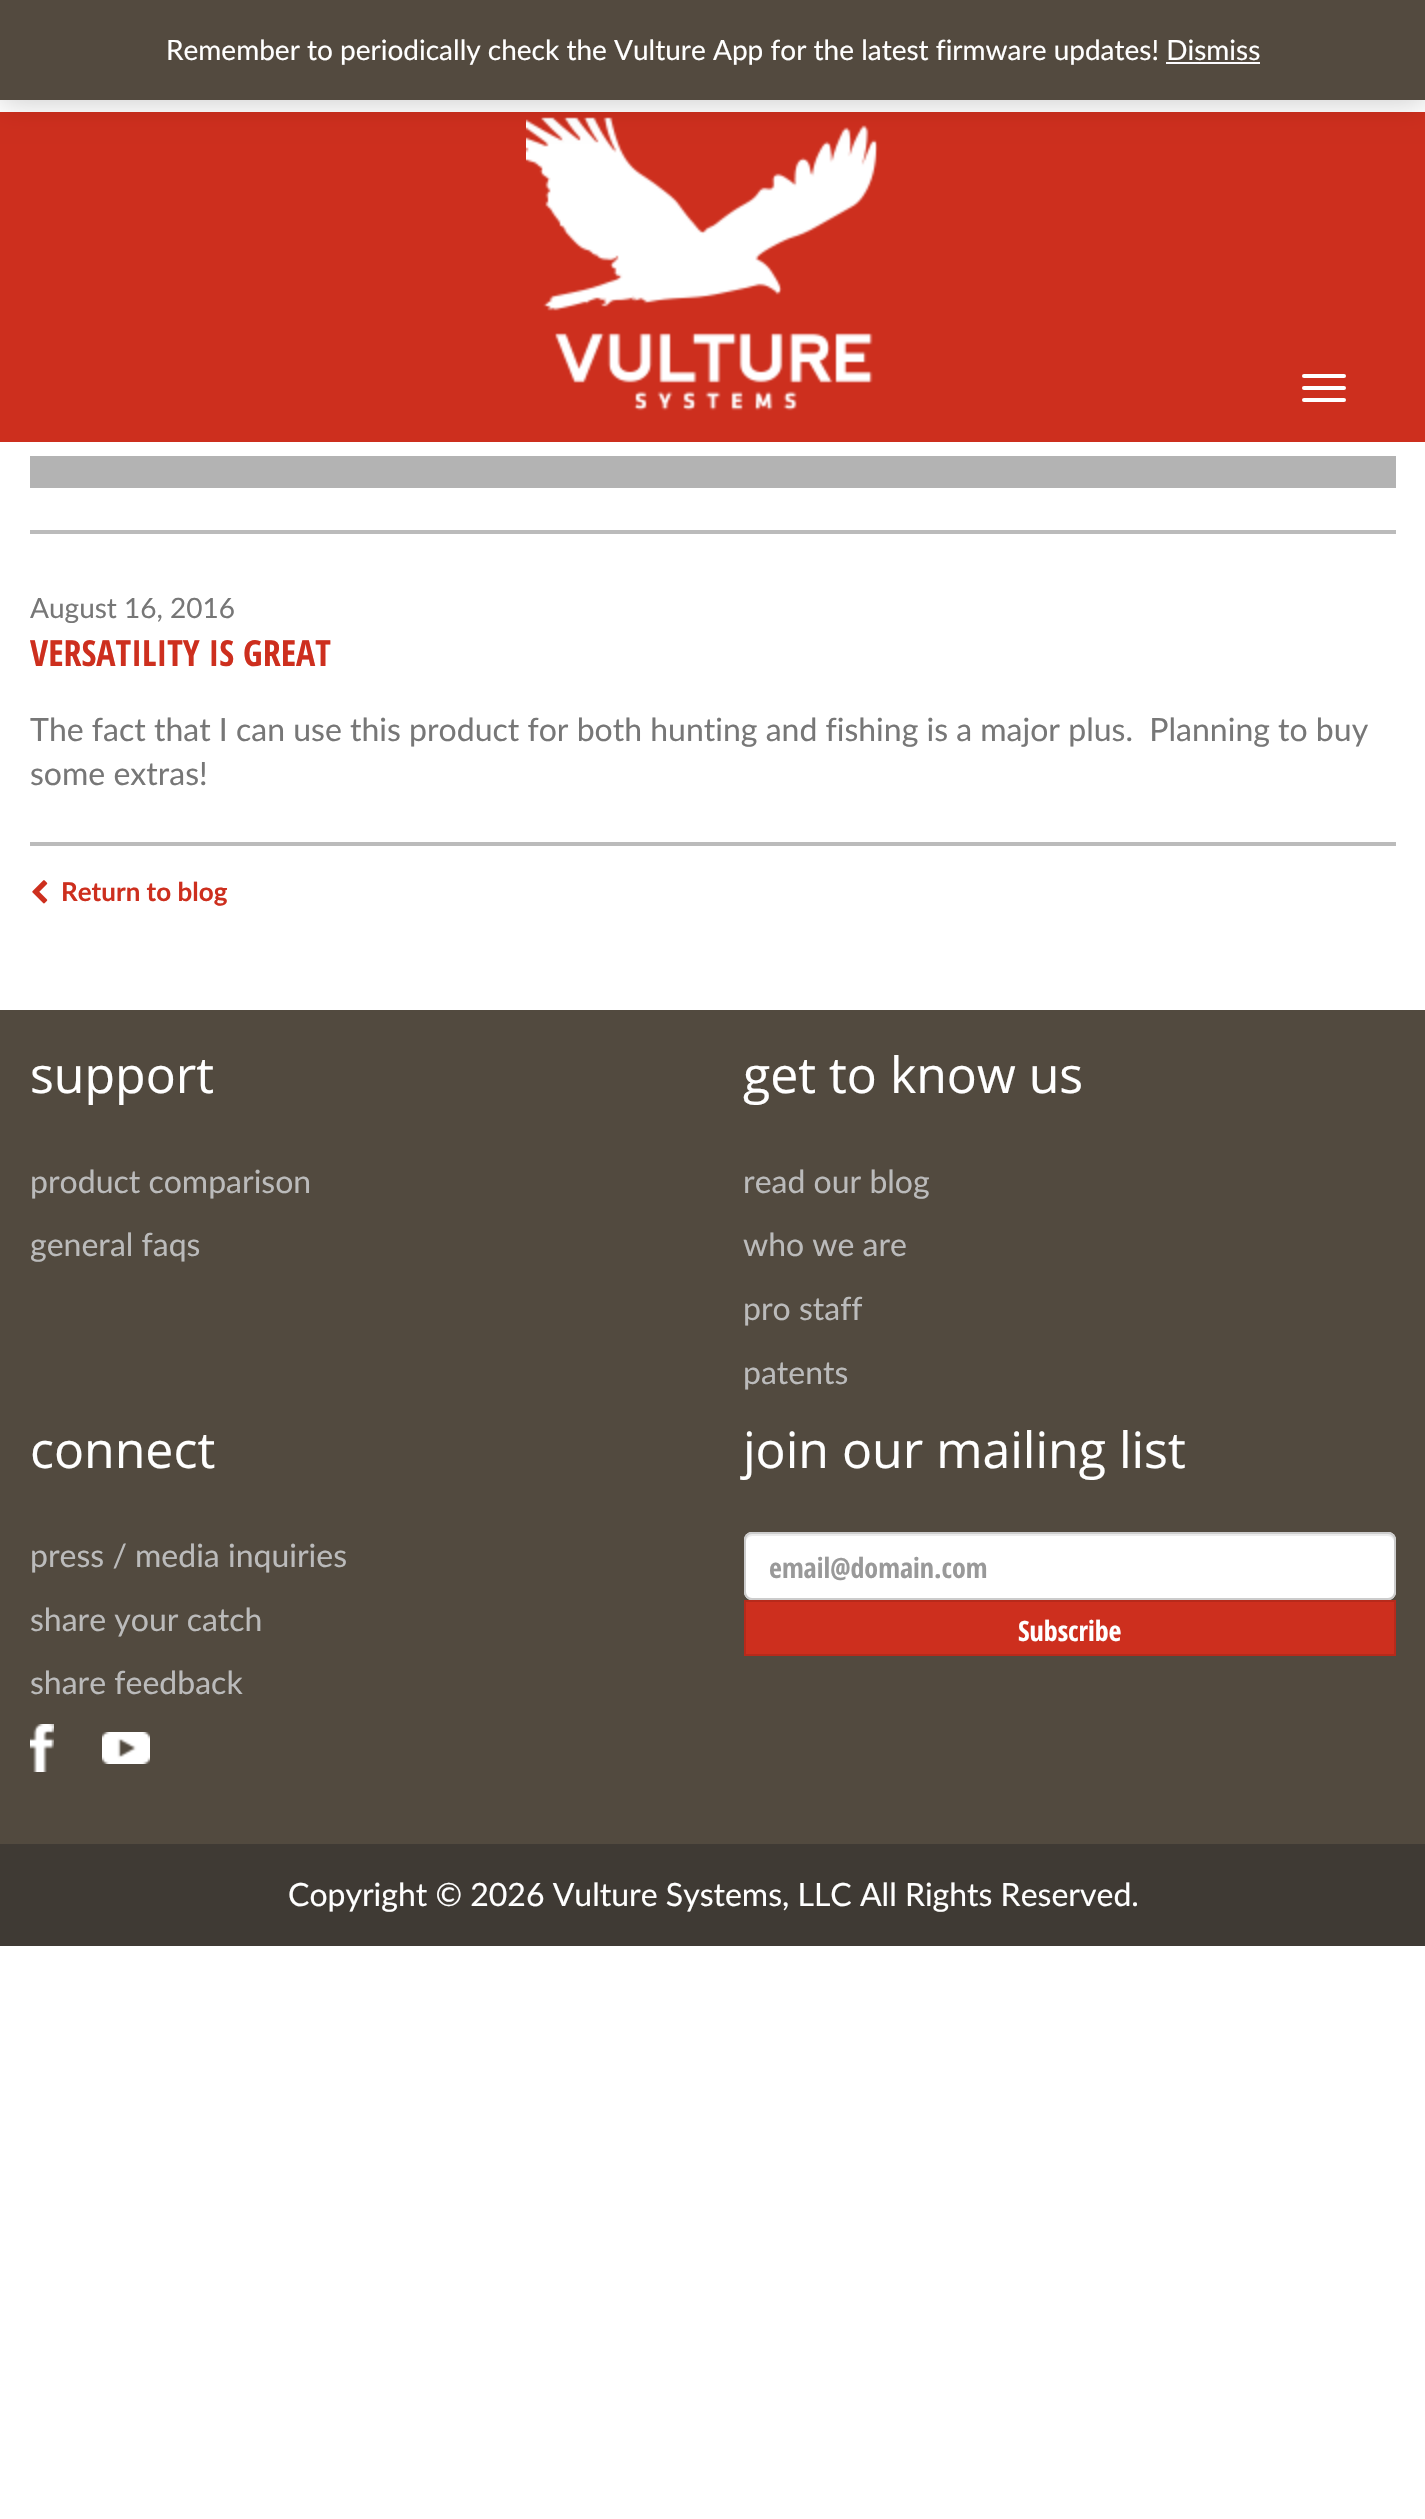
void draw(SkCanvas* canvas) {
	SkPaint paint;
	paint.setAntiAlias(true);
	auto svgPath = [&](const char* data, bool evenOdd = false) {
		SkPath result = *SkParsePath::FromSVGString(data);
		if (evenOdd) result.setFillType(SkPathFillType::kEvenOdd);
		return result;
	};
	canvas->clear(0xffffffff);
	paint.setColor(0xffcd2f1e);
	canvas->drawRect(SkRect::MakeXYWH(0, 112, 1425, 330), paint);
	canvas->drawImageRect(SkImages::DeferredFromEncodedData(SkData::MakeFromFileName("img1.png")), SkRect::MakeXYWH(526, 117, 352, 294), SkSamplingOptions());
	paint.setColor(0x33000000);
	paint.setMaskFilter(SkMaskFilter::MakeBlur(kNormal_SkBlurStyle, 14));
	canvas->drawRect(SkRect::MakeXYWH(0, 2, 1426, 100), paint);
	paint.setMaskFilter(nullptr);
	paint.setColor(0xff534a3f);
	canvas->drawRect(SkRect::MakeXYWH(0, 0, 1425, 100), paint);
	SkFont f1(fontMgr->matchFamilyStyle("Lato", SkFontStyle::Normal()), 28);
	f1.setSubpixel(true);
	paint.setColor(0xffffffff);
	canvas->drawString("Remember to periodically check the Vulture App for the latest firmware updates! Dismiss", 166, 60, f1, paint);
	paint.setColor(0xfffcfbfe);
	canvas->drawRect(SkRect::MakeXYWH(1166, 62, 94, 2), paint);
	paint.setColor(0xffffffff);
	canvas->drawRoundRect(SkRect::MakeXYWH(1302, 374, 44, 4), 2, 2, paint);
	canvas->drawRoundRect(SkRect::MakeXYWH(1302, 386, 44, 4), 2, 2, paint);
	canvas->drawRoundRect(SkRect::MakeXYWH(1302, 398, 44, 4), 2, 2, paint);
	paint.setColor(0xffb3b3b3);
	canvas->drawRect(SkRect::MakeXYWH(30, 456, 1366, 32), paint);
	paint.setColor(0xffbbbbbb);
	canvas->drawRect(SkRect::MakeXYWH(30, 530, 1366, 4), paint);
	canvas->drawRect(SkRect::MakeXYWH(30, 842, 1366, 4), paint);
	paint.setColor(0xff777777);
	canvas->drawString("August 16, 2016", 30, 618, f1, paint);
	SkFont f2(fontMgr->matchFamilyStyle("Open Sans Condensed", SkFontStyle::Bold()), 36);
	f2.setSubpixel(true);
	paint.setColor(0xffcd2f1e);
	canvas->drawString("VERSATILITY IS GREAT", 30, 666, f2, paint);
	SkFont f3(fontMgr->matchFamilyStyle("Lato", SkFontStyle::Normal()), 32);
	f3.setSubpixel(true);
	paint.setColor(0xff777777);
	canvas->drawString("The fact that I can use this product for both hunting and fishing is a major plus.  Planning to buy", 30, 741, f3, paint);
	canvas->drawString("some extras!", 30, 785, f3, paint);
	canvas->drawImageRect(SkImages::DeferredFromEncodedData(SkData::MakeFromFileName("img2.png")), SkRect::MakeXYWH(32, 880, 16, 24), SkSamplingOptions());
	SkFont f4(fontMgr->matchFamilyStyle("Lato", SkFontStyle::Bold()), 26);
	f4.setSubpixel(true);
	paint.setColor(0xffcd2f1e);
	canvas->drawString("Return to blog", 61, 901, f4, paint);
	paint.setColor(0xff524a3f);
	canvas->drawRect(SkRect::MakeXYWH(0, 1010, 1425, 834), paint);
	SkFont f5(fontMgr->matchFamilyStyle("Open Sans", SkFontStyle::Normal()), 50);
	f5.setSubpixel(true);
	paint.setColor(0xffffffff);
	canvas->drawString("support", 30, 1093, f5, paint);
	paint.setColor(0xffbbbbbb);
	canvas->drawString("product comparison", 30, 1193, f3, paint);
	canvas->drawString("general faqs", 30, 1256, f3, paint);
	paint.setColor(0xffffffff);
	canvas->drawString("get to know us", 743, 1093, f5, paint);
	paint.setColor(0xffbbbbbb);
	canvas->drawString("read our blog", 743, 1193, f3, paint);
	canvas->drawString("who we are", 743, 1256, f3, paint);
	canvas->drawString("pro staff", 743, 1320, f3, paint);
	canvas->drawString("patents", 743, 1384, f3, paint);
	paint.setColor(0xffffffff);
	canvas->drawString("connect", 30, 1468, f5, paint);
	paint.setColor(0xffbbbbbb);
	canvas->drawString("press / media inquiries", 30, 1567, f3, paint);
	canvas->drawString("share your catch", 30, 1631, f3, paint);
	canvas->drawString("share feedback", 30, 1694, f3, paint);
	canvas->drawImageRect(SkImages::DeferredFromEncodedData(SkData::MakeFromFileName("img3.png")), SkRect::MakeXYWH(30, 1724, 24, 48), SkSamplingOptions());
	canvas->drawImageRect(SkImages::DeferredFromEncodedData(SkData::MakeFromFileName("img4.png")), SkRect::MakeXYWH(102, 1732, 48, 32), SkSamplingOptions());
	paint.setColor(0xffffffff);
	canvas->drawString("join our mailing list", 743, 1468, f5, paint);
	canvas->drawRoundRect(SkRect::MakeXYWH(744, 1532, 652, 68), 8, 8, paint);
	paint.setColor(0xffececec);
	canvas->drawPath(svgPath("M752 1536H1388C1391 1536 1394 1539 1394 1542C1394 1538 1393 1534 1388 1534H752C747 1534 746 1538 746 1542C746 1539 749 1536 752 1536Z"), paint);
	paint.setStroke(true);
	paint.setStrokeWidth(2);
	paint.setColor(0xffcccccc);
	canvas->drawRoundRect(SkRect::MakeXYWH(745, 1533, 650, 66), 7, 7, paint);
	SkFont f6(fontMgr->matchFamilyStyle("Open Sans Condensed", SkFontStyle::Bold()), 28);
	f6.setSubpixel(true);
	paint.setStroke(false);
	paint.setColor(0xff999999);
	canvas->drawString("email@domain.com", 769, 1578, f6, paint);
	paint.setColor(0xffcd2f1e);
	canvas->drawRect(SkRect::MakeXYWH(745, 1601, 650, 54), paint);
	paint.setStroke(true);
	paint.setColor(0xffb72a1b);
	canvas->drawRect(SkRect::MakeXYWH(745, 1601, 650, 54), paint);
	paint.setStroke(false);
	paint.setColor(0xffffffff);
	canvas->drawString("Subscribe", 1018, 1641, f6, paint);
	paint.setColor(0xff3f3a34);
	canvas->drawRect(SkRect::MakeXYWH(0, 1844, 1425, 102), paint);
	paint.setColor(0xffffffff);
	canvas->drawString("Copyright © 2026 Vulture Systems, LLC All Rights Reserved.", 288, 1906, f3, paint);
}
